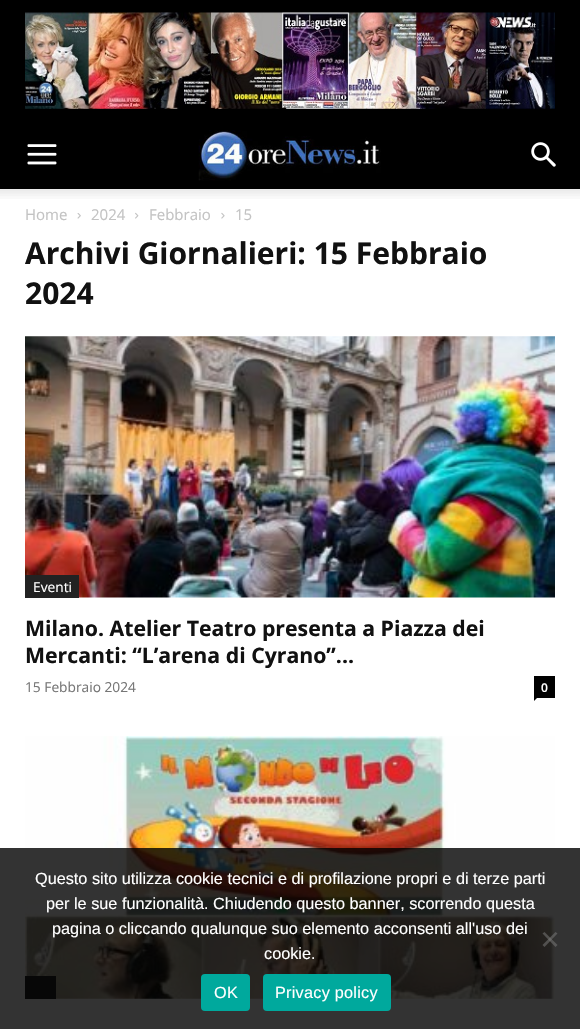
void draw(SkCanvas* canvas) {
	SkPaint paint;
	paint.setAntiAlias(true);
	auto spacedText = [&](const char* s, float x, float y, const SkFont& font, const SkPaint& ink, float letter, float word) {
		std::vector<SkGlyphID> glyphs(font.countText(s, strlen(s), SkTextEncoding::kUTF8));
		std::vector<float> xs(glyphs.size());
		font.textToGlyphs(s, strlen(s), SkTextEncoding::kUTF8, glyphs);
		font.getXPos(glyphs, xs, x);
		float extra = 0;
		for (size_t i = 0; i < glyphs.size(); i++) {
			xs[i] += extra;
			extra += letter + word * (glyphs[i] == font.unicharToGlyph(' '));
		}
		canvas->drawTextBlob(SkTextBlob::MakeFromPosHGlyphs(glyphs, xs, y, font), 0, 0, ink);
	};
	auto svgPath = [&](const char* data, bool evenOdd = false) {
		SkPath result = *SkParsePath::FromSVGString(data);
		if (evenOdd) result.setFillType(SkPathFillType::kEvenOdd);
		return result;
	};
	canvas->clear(0xffffffff);
	canvas->drawImageRect(SkImages::DeferredFromEncodedData(SkData::MakeFromFileName("img1.png")), SkRect::MakeXYWH(0, 0, 580, 121), SkSamplingOptions());
	canvas->drawImageRect(SkImages::DeferredFromEncodedData(SkData::MakeFromFileName("img2.png")), SkRect::MakeXYWH(25, 12, 530, 97), SkSamplingOptions());
	paint.setColor(0xff000000);
	canvas->drawRect(SkRect::MakeXYWH(0, 121, 580, 68), paint);
	canvas->drawImageRect(SkImages::DeferredFromEncodedData(SkData::MakeFromFileName("img3.png")), SkRect::MakeXYWH(27, 144, 30, 21), SkSamplingOptions());
	canvas->drawImageRect(SkImages::DeferredFromEncodedData(SkData::MakeFromFileName("img4.png")), SkRect::MakeXYWH(198, 130, 183, 51), SkSamplingOptions());
	canvas->drawImageRect(SkImages::DeferredFromEncodedData(SkData::MakeFromFileName("img5.png")), SkRect::MakeXYWH(531, 142, 25, 25), SkSamplingOptions());
	canvas->drawImageRect(SkImages::DeferredFromEncodedData(SkData::MakeFromFileName("img6.png")), SkRect::MakeXYWH(0, 189, 580, 10), SkSamplingOptions());
	SkFont f1(fontMgr->matchFamilyStyle("Open Sans", SkFontStyle::Normal()), 15);
	f1.setSubpixel(true);
	paint.setColor(0xffc3c3c3);
	canvas->drawString("Home", 25, 220, f1, paint);
	canvas->drawImageRect(SkImages::DeferredFromEncodedData(SkData::MakeFromFileName("img7.png")), SkRect::MakeXYWH(77, 213, 4, 6), SkSamplingOptions());
	canvas->drawString("2024", 91, 220, f1, paint);
	canvas->drawImageRect(SkImages::DeferredFromEncodedData(SkData::MakeFromFileName("img8.png")), SkRect::MakeXYWH(135, 212, 4, 7), SkSamplingOptions());
	canvas->drawString("Febbraio", 149, 220, f1, paint);
	canvas->drawImageRect(SkImages::DeferredFromEncodedData(SkData::MakeFromFileName("img9.png")), SkRect::MakeXYWH(221, 212, 4, 7), SkSamplingOptions());
	canvas->drawString("15", 235, 220, f1, paint);
	SkFont f2(fontMgr->matchFamilyStyle("Open Sans", SkFontStyle::Bold()), 30);
	f2.setSubpixel(true);
	paint.setColor(0xff111111);
	canvas->drawString("Archivi Giornalieri: 15 Febbraio", 25, 264, f2, paint);
	canvas->drawString("2024", 25, 304, f2, paint);
	canvas->drawImageRect(SkImages::DeferredFromEncodedData(SkData::MakeFromFileName("img10.png")), SkRect::MakeXYWH(25, 336, 530, 262), SkSamplingOptions());
	paint.setColor(0xff222222);
	canvas->drawRect(SkRect::MakeXYWH(25, 575, 54, 23), paint);
	SkFont f3(fontMgr->matchFamilyStyle("Open Sans", SkFontStyle::Normal()), 13.75);
	f3.setSubpixel(true);
	paint.setColor(0xffffffff);
	canvas->drawString("Eventi", 33, 592, f3, paint);
	SkFont f4(fontMgr->matchFamilyStyle("Open Sans", SkFontStyle::Bold()), 21.25);
	f4.setSubpixel(true);
	paint.setColor(0xff111111);
	canvas->drawString("Milano. Atelier Teatro presenta a Piazza dei", 25, 636, f4, paint);
	canvas->drawString("Mercanti: “L’arena di Cyrano”...", 25, 663, f4, paint);
	paint.setColor(0xff767676);
	canvas->drawString("15 Febbraio 2024", 25, 692, f3, paint);
	paint.setColor(0xff000000);
	canvas->drawRect(SkRect::MakeXYWH(534, 676, 21, 22), paint);
	SkFont f5(fontMgr->matchFamilyStyle("Open Sans", SkFontStyle(600, SkFontStyle::kNormal_Width, SkFontStyle::kUpright_Slant)), 12);
	f5.setSubpixel(true);
	paint.setColor(0xffffffff);
	canvas->drawString("0", 541, 692, f5, paint);
	paint.setColor(0xff000000);
	canvas->drawPath(svgPath("M534 697.5H537.5L534 701Z"), paint);
	canvas->drawImageRect(SkImages::DeferredFromEncodedData(SkData::MakeFromFileName("img11.png")), SkRect::MakeXYWH(25, 736, 530, 263), SkSamplingOptions());
	paint.setColor(0xff222222);
	canvas->drawRect(SkRect::MakeXYWH(25, 976, 31, 23), paint);
	paint.setColor(0xcc000000);
	canvas->drawRect(SkRect::MakeXYWH(0, 848, 580, 181), paint);
	SkFont f6(fontMgr->matchFamilyStyle("Liberation Sans", SkFontStyle::Normal()), 16.25);
	f6.setSubpixel(true);
	paint.setColor(0xffffffff);
	canvas->drawString("Questo sito utilizza cookie tecnici e di profilazione propri e di terze parti", 35, 884, f6, paint);
	canvas->drawString("per le sue funzionalità. Chiudendo questo banner, scorrendo questa", 46, 909, f6, paint);
	canvas->drawString("pagina o cliccando qualunque suo elemento acconsenti all'uso dei", 52, 934, f6, paint);
	canvas->drawString("cookie.", 264, 959, f6, paint);
	paint.setColor(0x80808080);
	canvas->drawPath(svgPath("M555.5 932L557.5 933.5L544.5 947L542.5 945Z"), paint);
	canvas->drawPath(svgPath("M542.5 933.5L544.5 932L557.5 945L555.5 947Z"), paint);
	paint.setColor(0xff00a99d);
	canvas->drawRoundRect(SkRect::MakeXYWH(201, 974, 49, 37), 4, 4, paint);
	paint.setColor(0xffffffff);
	spacedText("OK", 214, 998, f6, paint, 0.25, 0);
	paint.setColor(0xff00a99d);
	canvas->drawRoundRect(SkRect::MakeXYWH(263, 974, 128, 37), 4, 4, paint);
	paint.setColor(0xffffffff);
	spacedText("Privacy policy", 275, 998, f6, paint, 0.25, 0);
}
